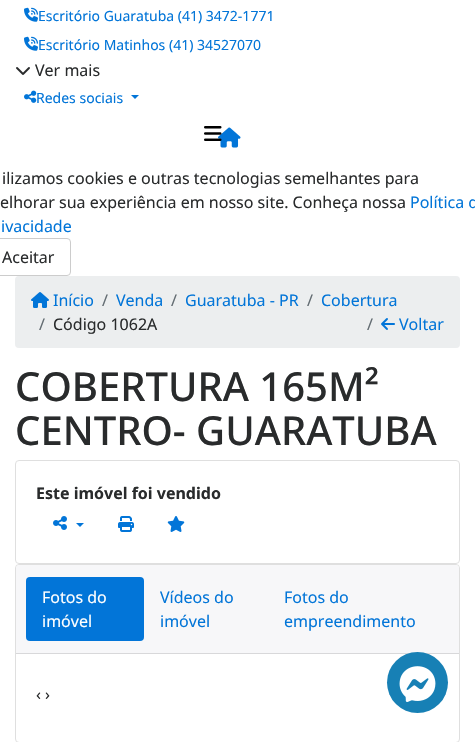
void draw(SkCanvas* canvas) {
	SkPaint paint;
	paint.setAntiAlias(true);
	auto svgPath = [&](const char* data, bool evenOdd = false) {
		SkPath result = *SkParsePath::FromSVGString(data);
		if (evenOdd) result.setFillType(SkPathFillType::kEvenOdd);
		return result;
	};
	canvas->clear(0xffffffff);
	canvas->drawImageRect(SkImages::DeferredFromEncodedData(SkData::MakeFromFileName("img1.png")), SkRect::MakeXYWH(24, 7, 14, 15), SkSamplingOptions());
	SkFont f1(fontMgr->matchFamilyStyle("Noto Sans", SkFontStyle::Normal()), 14);
	f1.setSubpixel(true);
	paint.setColor(0xff0275d8);
	canvas->drawString("Escritório Guaratuba (41) 3472-1771", 38, 21, f1, paint);
	canvas->drawImageRect(SkImages::DeferredFromEncodedData(SkData::MakeFromFileName("img1.png")), SkRect::MakeXYWH(24, 36, 14, 15), SkSamplingOptions());
	canvas->drawString("Escritório Matinhos (41) 34527070", 38, 50, f1, paint);
	canvas->drawImageRect(SkImages::DeferredFromEncodedData(SkData::MakeFromFileName("img2.png")), SkRect::MakeXYWH(16, 67, 14, 8), SkSamplingOptions());
	SkFont f2(fontMgr->matchFamilyStyle("Noto Sans", SkFontStyle::Normal()), 16);
	f2.setSubpixel(true);
	paint.setColor(0xff292b2c);
	canvas->drawString("Ver mais", 35, 76, f2, paint);
	canvas->drawImageRect(SkImages::DeferredFromEncodedData(SkData::MakeFromFileName("img3.png")), SkRect::MakeXYWH(24, 90, 13, 13), SkSamplingOptions());
	paint.setColor(0xff0275d8);
	canvas->drawString("Redes sociais", 36, 103, f1, paint);
	canvas->drawPath(svgPath("M131 95H139L135 99Z"), paint);
	canvas->drawImageRect(SkImages::DeferredFromEncodedData(SkData::MakeFromFileName("img5.png")), SkRect::MakeXYWH(218, 127, 23, 21), SkSamplingOptions());
	canvas->drawImageRect(SkImages::DeferredFromEncodedData(SkData::MakeFromFileName("img4.png")), SkRect::MakeXYWH(204, 126, 18, 15), SkSamplingOptions());
	paint.setColor(0xff292b2c);
	canvas->drawString("ilizamos cookies e outras tecnologias semelhantes para", 2, 184, f2, paint);
	canvas->drawString("elhorar sua experiência em nosso site. Conheça nossa", 0, 208, f2, paint);
	paint.setColor(0xff0275d8);
	canvas->drawString("Política d", 410, 208, f2, paint);
	canvas->drawString("ivacidade", 1, 232, f2, paint);
	paint.setStroke(true);
	paint.setStrokeWidth(1);
	paint.setColor(0xffcccccc);
	canvas->drawRoundRect(SkRect::MakeXYWH(-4.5, 238.5, 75, 37), 3.5, 3.5, paint);
	paint.setStroke(false);
	paint.setColor(0xff292b2c);
	canvas->drawString("Aceitar", 2, 263, f2, paint);
	paint.setColor(0xffeceeef);
	canvas->drawRoundRect(SkRect::MakeXYWH(15, 276, 445, 72), 4, 4, paint);
	canvas->drawImageRect(SkImages::DeferredFromEncodedData(SkData::MakeFromFileName("img6.png")), SkRect::MakeXYWH(31, 292, 18, 16), SkSamplingOptions());
	paint.setColor(0xff0275d8);
	canvas->drawString("Início", 53, 306, f2, paint);
	paint.setColor(0xff636c72);
	canvas->drawString("/", 102, 306, f2, paint);
	paint.setColor(0xff0275d8);
	canvas->drawString("Venda", 116, 306, f2, paint);
	paint.setColor(0xff636c72);
	canvas->drawString("/", 171, 306, f2, paint);
	paint.setColor(0xff0275d8);
	canvas->drawString("Guaratuba - PR", 185, 306, f2, paint);
	paint.setColor(0xff636c72);
	canvas->drawString("/", 307, 306, f2, paint);
	paint.setColor(0xff0275d8);
	canvas->drawString("Cobertura", 321, 306, f2, paint);
	paint.setColor(0xff636c72);
	canvas->drawString("/", 39, 330, f2, paint);
	paint.setColor(0xff292b2c);
	canvas->drawString("Código 1062A", 53, 330, f2, paint);
	paint.setColor(0xff636c72);
	canvas->drawString("/", 367, 330, f2, paint);
	canvas->drawImageRect(SkImages::DeferredFromEncodedData(SkData::MakeFromFileName("img7.png")), SkRect::MakeXYWH(381, 318, 14, 12), SkSamplingOptions());
	paint.setColor(0xff0275d8);
	canvas->drawString("Voltar", 399, 330, f2, paint);
	SkFont f3(fontMgr->matchFamilyStyle("Noto Sans", SkFontStyle(500, SkFontStyle::kNormal_Width, SkFontStyle::kUpright_Slant)), 40);
	f3.setSubpixel(true);
	paint.setColor(0xff292b2c);
	canvas->drawString("COBERTURA 165M²", 15, 401, f3, paint);
	canvas->drawString("CENTRO- GUARATUBA", 15, 445, f3, paint);
	paint.setStroke(true);
	paint.setColor(0xffdfdfdf);
	canvas->drawRoundRect(SkRect::MakeXYWH(15.5, 460.5, 444, 103), 3.5, 3.5, paint);
	SkFont f4(fontMgr->matchFamilyStyle("Noto Sans", SkFontStyle::Bold()), 16);
	f4.setSubpixel(true);
	paint.setStroke(false);
	paint.setColor(0xff292b2c);
	canvas->drawString("Este imóvel foi vendido", 36, 499, f4, paint);
	canvas->drawImageRect(SkImages::DeferredFromEncodedData(SkData::MakeFromFileName("img8.png")), SkRect::MakeXYWH(53, 516, 14, 14), SkSamplingOptions());
	paint.setColor(0xff0275d8);
	canvas->drawPath(svgPath("M76 523H84L80 527Z"), paint);
	canvas->drawImageRect(SkImages::DeferredFromEncodedData(SkData::MakeFromFileName("img9.png")), SkRect::MakeXYWH(118, 516, 16, 16), SkSamplingOptions());
	canvas->drawImageRect(SkImages::DeferredFromEncodedData(SkData::MakeFromFileName("img10.png")), SkRect::MakeXYWH(167, 516, 18, 16), SkSamplingOptions());
	paint.setStroke(true);
	paint.setColor(0xffdfdfdf);
	canvas->drawRoundRect(SkRect::MakeXYWH(15.5, 564.5, 444, 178), 3.5, 3.5, paint);
	paint.setStroke(false);
	paint.setColor(0xfff7f7f9);
	canvas->drawPath(svgPath("M19 565H456C457.5 565 459 566.5 459 568V654H16V568C16 566.5 17.5 565 19 565Z"), paint);
	paint.setColor(0xffd8d8da);
	canvas->drawRect(SkRect::MakeXYWH(16, 653, 443, 1), paint);
	paint.setColor(0xff0275d8);
	canvas->drawRoundRect(SkRect::MakeXYWH(26, 577, 118, 64), 4, 4, paint);
	paint.setColor(0xffffffff);
	canvas->drawString("Fotos do", 42, 603, f2, paint);
	canvas->drawString("imóvel", 42, 627, f2, paint);
	paint.setColor(0xff0275d8);
	canvas->drawString("Vídeos do", 160, 603, f2, paint);
	canvas->drawString("imóvel", 160, 627, f2, paint);
	canvas->drawString("Fotos do", 284, 603, f2, paint);
	canvas->drawString("empreendimento", 284, 627, f2, paint);
	paint.setColor(0xff292b2c);
	canvas->drawString("‹ ›", 36, 700, f2, paint);
	paint.setColor(0xff1780b5);
	canvas->drawCircle(417.5, 682.5, 30.5, paint);
	canvas->drawImageRect(SkImages::DeferredFromEncodedData(SkData::MakeFromFileName("img11.png")), SkRect::MakeXYWH(399, 666, 37, 36), SkSamplingOptions());
}
